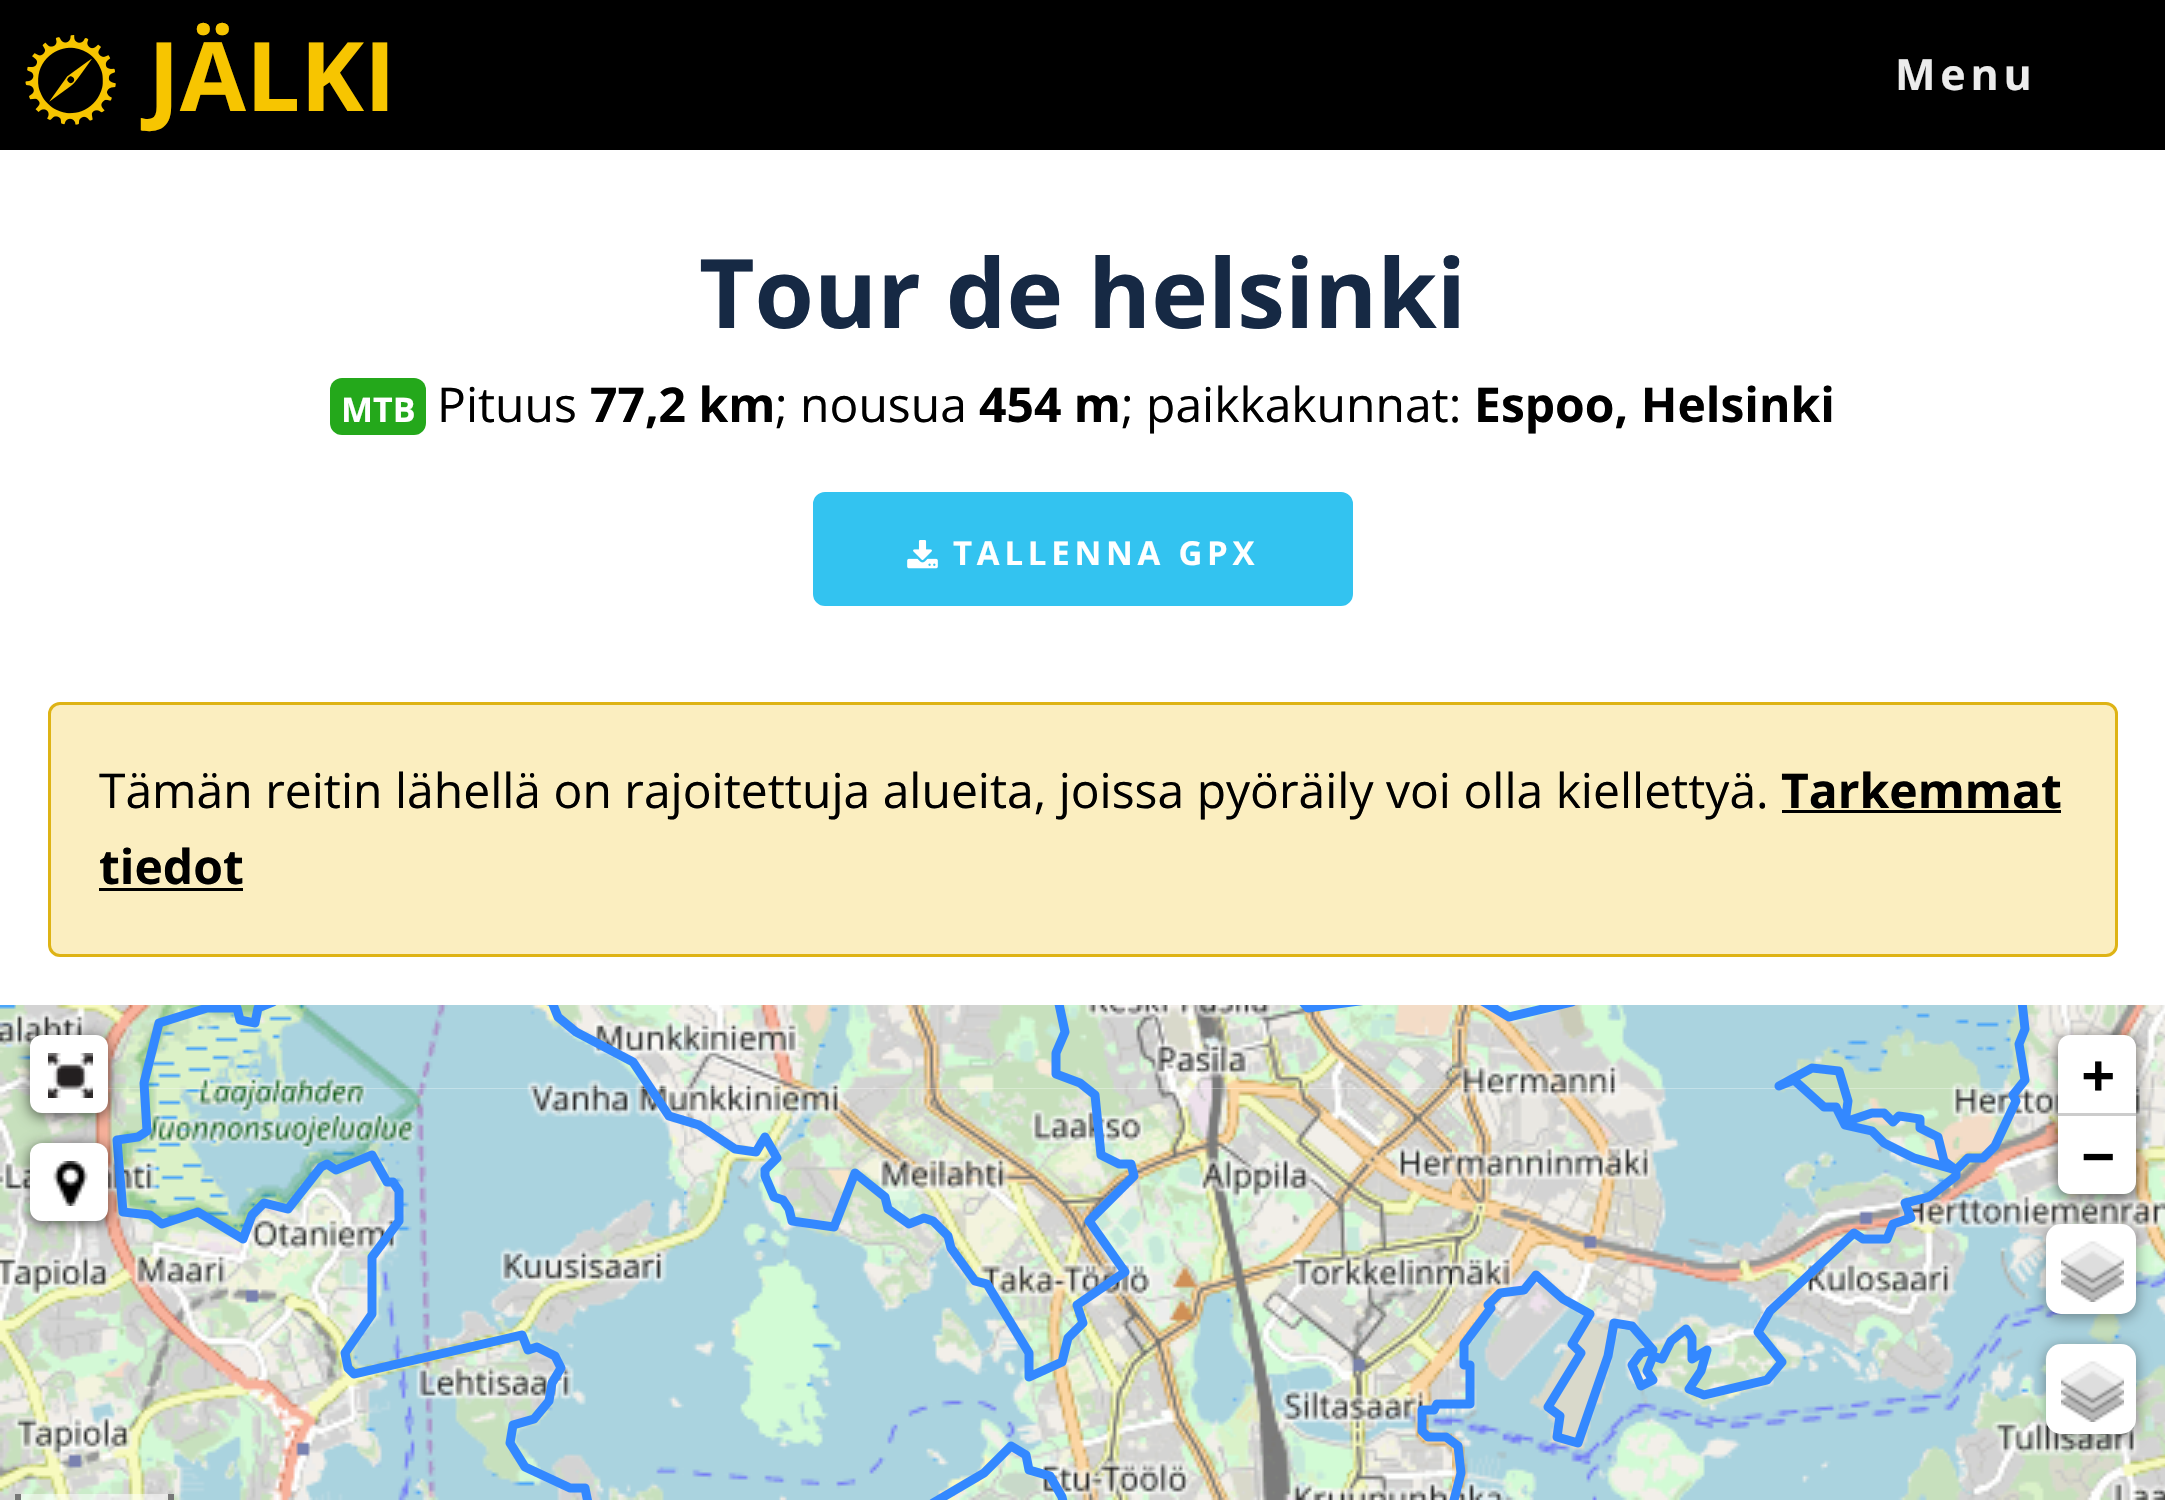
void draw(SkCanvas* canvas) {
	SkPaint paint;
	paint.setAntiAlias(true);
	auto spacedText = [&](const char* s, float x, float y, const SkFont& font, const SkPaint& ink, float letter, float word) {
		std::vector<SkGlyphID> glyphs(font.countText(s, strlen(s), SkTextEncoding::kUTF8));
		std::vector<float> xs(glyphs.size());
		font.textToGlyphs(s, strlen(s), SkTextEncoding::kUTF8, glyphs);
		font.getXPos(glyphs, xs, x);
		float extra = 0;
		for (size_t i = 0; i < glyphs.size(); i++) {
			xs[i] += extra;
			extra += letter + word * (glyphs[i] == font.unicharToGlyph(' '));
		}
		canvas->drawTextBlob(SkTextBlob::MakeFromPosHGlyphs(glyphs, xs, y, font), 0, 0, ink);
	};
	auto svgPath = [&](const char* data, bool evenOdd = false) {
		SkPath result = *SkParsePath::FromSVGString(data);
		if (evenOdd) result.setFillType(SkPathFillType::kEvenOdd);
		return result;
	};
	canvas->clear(0xffffffff);
	paint.setColor(0xff000000);
	canvas->drawRect(SkRect::MakeXYWH(0, 0, 2165, 150), paint);
	canvas->drawImageRect(SkImages::DeferredFromEncodedData(SkData::MakeFromFileName("img1.png")), SkRect::MakeXYWH(25, 35, 91, 90), SkSamplingOptions());
	SkFont f1(fontMgr->matchFamilyStyle("Open Sans", SkFontStyle::Bold()), 96);
	f1.setSubpixel(true);
	paint.setColor(0xfff7c500);
	canvas->drawString("JÄLKI", 148, 111, f1, paint);
	SkFont f2(fontMgr->matchFamilyStyle("Open Sans", SkFontStyle::Bold()), 43);
	f2.setSubpixel(true);
	paint.setColor(0xffececec);
	spacedText("Menu", 1895, 90, f2, paint, 4.75, 0);
	paint.setColor(0xff162944);
	canvas->drawString("Tour de helsinki", 699, 328, f1, paint);
	paint.setColor(0xff24a81b);
	canvas->drawRoundRect(SkRect::MakeXYWH(330, 378, 96, 57), 12, 12, paint);
	SkFont f3(fontMgr->matchFamilyStyle("Open Sans", SkFontStyle::Bold()), 34);
	f3.setSubpixel(true);
	paint.setColor(0xffffffff);
	canvas->drawString("MTB", 341, 422, f3, paint);
	SkFont f4(fontMgr->matchFamilyStyle("Open Sans", SkFontStyle::Normal()), 48);
	f4.setSubpixel(true);
	paint.setColor(0xff000000);
	canvas->drawString("Pituus", 437, 422, f4, paint);
	SkFont f5(fontMgr->matchFamilyStyle("Open Sans", SkFontStyle::Bold()), 48);
	f5.setSubpixel(true);
	canvas->drawString("77,2 km", 590, 422, f5, paint);
	canvas->drawString("; nousua", 775, 422, f4, paint);
	canvas->drawString("454 m", 979, 422, f5, paint);
	canvas->drawString("; paikkakunnat:", 1121, 422, f4, paint);
	canvas->drawString("Espoo, Helsinki", 1474, 422, f5, paint);
	paint.setColor(0xff33c3f0);
	canvas->drawRoundRect(SkRect::MakeXYWH(814.5, 493.5, 537, 111), 10.5, 10.5, paint);
	paint.setStroke(true);
	paint.setStrokeWidth(3);
	canvas->drawRoundRect(SkRect::MakeXYWH(814.5, 493.5, 537, 111), 10.5, 10.5, paint);
	canvas->drawImageRect(SkImages::DeferredFromEncodedData(SkData::MakeFromFileName("img2.png")), SkRect::MakeXYWH(907, 540, 31, 29), SkSamplingOptions());
	SkFont f6(fontMgr->matchFamilyStyle("Open Sans", SkFontStyle::Bold()), 33);
	f6.setSubpixel(true);
	paint.setStroke(false);
	paint.setColor(0xffffffff);
	spacedText("TALLENNA GPX", 953, 565, f6, paint, 4.75, 0);
	paint.setColor(0xfffbeec0);
	canvas->drawRoundRect(SkRect::MakeXYWH(49.5, 703.5, 2067, 252), 10.5, 10.5, paint);
	paint.setStroke(true);
	paint.setColor(0xffdeb315);
	canvas->drawRoundRect(SkRect::MakeXYWH(49.5, 703.5, 2067, 252), 10.5, 10.5, paint);
	paint.setStroke(false);
	paint.setColor(0xff000000);
	canvas->drawString("Tämän reitin lähellä on rajoitettuja alueita, joissa pyöräily voi olla kiellettyä.", 99, 808, f4, paint);
	canvas->drawString("Tarkemmat", 1781, 808, f5, paint);
	canvas->drawRect(SkRect::MakeXYWH(1782, 810, 279, 3), paint);
	canvas->drawString("tiedot", 99, 884, f5, paint);
	canvas->drawRect(SkRect::MakeXYWH(99, 888, 144, 3), paint);
	canvas->drawImageRect(SkImages::DeferredFromEncodedData(SkData::MakeFromFileName("img6.png")), SkRect::MakeXYWH(0, 1089, 684, 411), SkSamplingOptions());
	canvas->drawImageRect(SkImages::DeferredFromEncodedData(SkData::MakeFromFileName("img3.png")), SkRect::MakeXYWH(0, 1005, 684, 85), SkSamplingOptions());
	canvas->drawImageRect(SkImages::DeferredFromEncodedData(SkData::MakeFromFileName("img7.png")), SkRect::MakeXYWH(684, 1089, 768, 411), SkSamplingOptions());
	canvas->drawImageRect(SkImages::DeferredFromEncodedData(SkData::MakeFromFileName("img4.png")), SkRect::MakeXYWH(684, 1005, 768, 85), SkSamplingOptions());
	canvas->drawImageRect(SkImages::DeferredFromEncodedData(SkData::MakeFromFileName("img8.png")), SkRect::MakeXYWH(1452, 1089, 713, 411), SkSamplingOptions());
	canvas->drawImageRect(SkImages::DeferredFromEncodedData(SkData::MakeFromFileName("img5.png")), SkRect::MakeXYWH(1452, 1005, 713, 85), SkSamplingOptions());
	canvas->drawImageRect(SkImages::DeferredFromEncodedData(SkData::MakeFromFileName("img9.png")), SkRect::MakeXYWH(112, 1005, 1918, 495), SkSamplingOptions());
	paint.setColor(0xa6000000);
	paint.setMaskFilter(SkMaskFilter::MakeBlur(kNormal_SkBlurStyle, 7.5));
	canvas->drawRoundRect(SkRect::MakeXYWH(30, 1038, 78, 78), 12, 12, paint);
	paint.setMaskFilter(nullptr);
	paint.setColor(0xffffffff);
	canvas->drawRoundRect(SkRect::MakeXYWH(30, 1035, 78, 78), 12, 12, paint);
	canvas->drawImageRect(SkImages::DeferredFromEncodedData(SkData::MakeFromFileName("img10.png")), SkRect::MakeXYWH(48, 1053, 45, 45), SkSamplingOptions());
	paint.setColor(0xa6000000);
	paint.setMaskFilter(SkMaskFilter::MakeBlur(kNormal_SkBlurStyle, 7.5));
	canvas->drawRoundRect(SkRect::MakeXYWH(30, 1146, 78, 78), 12, 12, paint);
	paint.setMaskFilter(nullptr);
	paint.setColor(0xffffffff);
	canvas->drawRoundRect(SkRect::MakeXYWH(30, 1143, 78, 78), 12, 12, paint);
	canvas->drawImageRect(SkImages::DeferredFromEncodedData(SkData::MakeFromFileName("img11.png")), SkRect::MakeXYWH(53, 1161, 35, 45), SkSamplingOptions());
	paint.setColor(0xa6000000);
	paint.setMaskFilter(SkMaskFilter::MakeBlur(kNormal_SkBlurStyle, 7.5));
	canvas->drawRoundRect(SkRect::MakeXYWH(2058, 1038, 78, 159), 12, 12, paint);
	paint.setMaskFilter(nullptr);
	paint.setColor(0xffffffff);
	canvas->drawPath(svgPath("M2070 1035H2124C2130.5 1035 2136 1040.5 2136 1047V1116H2058V1047C2058 1040.5 2063.5 1035 2070 1035Z"), paint);
	paint.setColor(0xffcccccc);
	canvas->drawRect(SkRect::MakeXYWH(2058, 1113, 78, 3), paint);
	SkFont f7(fontMgr->matchFamilyStyle("DejaVu Sans Mono", SkFontStyle::Bold()), 54);
	f7.setSubpixel(true);
	paint.setColor(0xff000000);
	canvas->drawString("+", 2082, 1093, f7, paint);
	paint.setColor(0xffffffff);
	canvas->drawPath(svgPath("M2058 1116H2136V1182C2136 1188.5 2130.5 1194 2124 1194H2070C2063.5 1194 2058 1188.5 2058 1182Z"), paint);
	paint.setColor(0xff000000);
	canvas->drawString("−", 2082, 1174, f7, paint);
	paint.setColor(0x66000000);
	paint.setMaskFilter(SkMaskFilter::MakeBlur(kNormal_SkBlurStyle, 7.5));
	canvas->drawRoundRect(SkRect::MakeXYWH(2046, 1227, 90, 90), 15, 15, paint);
	paint.setMaskFilter(nullptr);
	paint.setColor(0xffffffff);
	canvas->drawRoundRect(SkRect::MakeXYWH(2046, 1224, 90, 90), 15, 15, paint);
	canvas->drawImageRect(SkImages::DeferredFromEncodedData(SkData::MakeFromFileName("img12.png")), SkRect::MakeXYWH(2061, 1241, 63, 61), SkSamplingOptions());
	paint.setColor(0x66000000);
	paint.setMaskFilter(SkMaskFilter::MakeBlur(kNormal_SkBlurStyle, 7.5));
	canvas->drawRoundRect(SkRect::MakeXYWH(2046, 1347, 90, 90), 15, 15, paint);
	paint.setMaskFilter(nullptr);
	paint.setColor(0xffffffff);
	canvas->drawRoundRect(SkRect::MakeXYWH(2046, 1344, 90, 90), 15, 15, paint);
	canvas->drawImageRect(SkImages::DeferredFromEncodedData(SkData::MakeFromFileName("img12.png")), SkRect::MakeXYWH(2061, 1361, 63, 61), SkSamplingOptions());
	paint.setColor(0x80ffffff);
	canvas->drawRect(SkRect::MakeXYWH(15, 1494, 159, 6), paint);
	paint.setColor(0xff777777);
	canvas->drawRect(SkRect::MakeXYWH(168, 1494, 6, 6), paint);
	canvas->drawRect(SkRect::MakeXYWH(15, 1494, 6, 6), paint);
}
